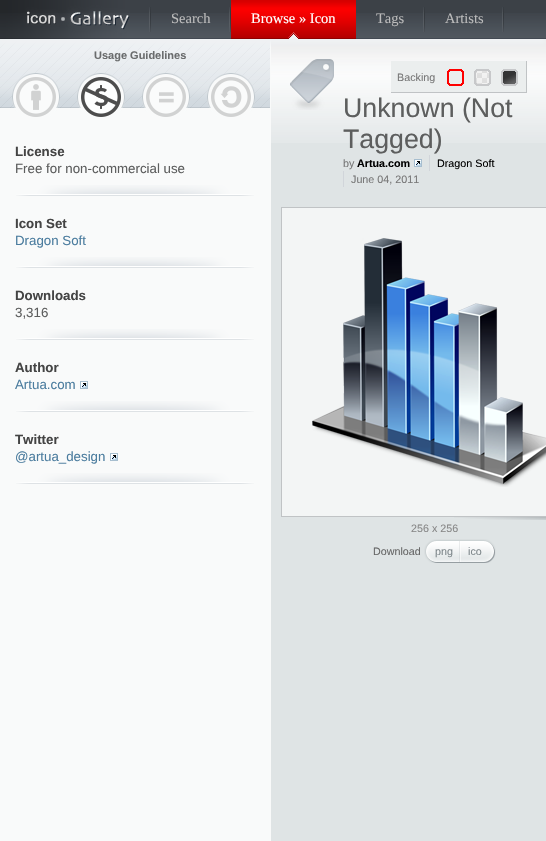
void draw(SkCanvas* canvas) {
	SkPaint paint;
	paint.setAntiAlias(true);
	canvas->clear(0xffdfe4e5);
	canvas->drawImageRect(SkImages::DeferredFromEncodedData(SkData::MakeFromFileName("img5.png")), SkRect::MakeXYWH(271, 39, 275, 104), SkSamplingOptions());
	paint.setColor(0xfff9fafa);
	canvas->drawRect(SkRect::MakeXYWH(0, 39, 271, 802), paint);
	canvas->drawImageRect(SkImages::DeferredFromEncodedData(SkData::MakeFromFileName("img6.png")), SkRect::MakeXYWH(0, 39, 270, 69), SkSamplingOptions());
	paint.setColor(0xfff0f2f4);
	paint.setMaskFilter(SkMaskFilter::MakeBlur(kNormal_SkBlurStyle, 2.5));
	canvas->drawRect(SkRect::MakeXYWH(0, 5, 546, 39), paint);
	paint.setMaskFilter(nullptr);
	paint.setColor(0xff3c4147);
	canvas->drawRect(SkRect::MakeXYWH(0, 0, 546, 13), paint);
	canvas->drawImageRect(SkImages::DeferredFromEncodedData(SkData::MakeFromFileName("img1.png")), SkRect::MakeXYWH(0, 13, 546, 26), SkSamplingOptions());
	canvas->drawImageRect(SkImages::DeferredFromEncodedData(SkData::MakeFromFileName("img2.png")), SkRect::MakeXYWH(149, 7, 2, 25), SkSamplingOptions());
	canvas->drawImageRect(SkImages::DeferredFromEncodedData(SkData::MakeFromFileName("img3.png")), SkRect::MakeXYWH(0, 0, 130, 39), SkSamplingOptions());
	canvas->drawImageRect(SkImages::DeferredFromEncodedData(SkData::MakeFromFileName("img2.png")), SkRect::MakeXYWH(229, 7, 2, 25), SkSamplingOptions());
	SkFont f1(fontMgr->matchFamilyStyle("Liberation Serif", SkFontStyle::Normal()), 14.5);
	f1.setSubpixel(true);
	paint.setColor(0xffbbbbbb);
	canvas->drawString("Search", 171, 23, f1, paint);
	canvas->drawImageRect(SkImages::DeferredFromEncodedData(SkData::MakeFromFileName("img4.png")), SkRect::MakeXYWH(231, 0, 125, 39), SkSamplingOptions());
	paint.setColor(0xffffffff);
	canvas->drawString("Browse » Icon", 251, 23, f1, paint);
	canvas->drawImageRect(SkImages::DeferredFromEncodedData(SkData::MakeFromFileName("img2.png")), SkRect::MakeXYWH(423, 7, 2, 25), SkSamplingOptions());
	paint.setColor(0xffbbbbbb);
	canvas->drawString("Tags", 376, 23, f1, paint);
	canvas->drawImageRect(SkImages::DeferredFromEncodedData(SkData::MakeFromFileName("img2.png")), SkRect::MakeXYWH(502, 7, 2, 25), SkSamplingOptions());
	canvas->drawString("Artists", 445, 23, f1, paint);
	SkFont f2(fontMgr->matchFamilyStyle("Liberation Sans", SkFontStyle::Bold()), 11);
	f2.setSubpixel(true);
	paint.setColor(0xff6a6c6d);
	canvas->drawString("Usage Guidelines", 94, 59, f2, paint);
	canvas->drawImageRect(SkImages::DeferredFromEncodedData(SkData::MakeFromFileName("img7.png")), SkRect::MakeXYWH(12, 73, 48, 44), SkSamplingOptions());
	canvas->drawImageRect(SkImages::DeferredFromEncodedData(SkData::MakeFromFileName("img8.png")), SkRect::MakeXYWH(77, 73, 48, 44), SkSamplingOptions());
	canvas->drawImageRect(SkImages::DeferredFromEncodedData(SkData::MakeFromFileName("img9.png")), SkRect::MakeXYWH(142, 73, 48, 44), SkSamplingOptions());
	canvas->drawImageRect(SkImages::DeferredFromEncodedData(SkData::MakeFromFileName("img10.png")), SkRect::MakeXYWH(207, 73, 48, 44), SkSamplingOptions());
	canvas->drawImageRect(SkImages::DeferredFromEncodedData(SkData::MakeFromFileName("img11.png")), SkRect::MakeXYWH(16, 185, 238, 11), SkSamplingOptions());
	SkFont f3(fontMgr->matchFamilyStyle("Liberation Sans", SkFontStyle::Bold()), 13.3);
	f3.setSubpixel(true);
	paint.setColor(0xff444444);
	canvas->drawString("License", 15, 156, f3, paint);
	SkFont f4(fontMgr->matchFamilyStyle("Liberation Sans", SkFontStyle::Normal()), 13.3);
	f4.setSubpixel(true);
	paint.setColor(0xff5d5e5e);
	canvas->drawString("Free for non-commercial use", 15, 173, f4, paint);
	canvas->drawImageRect(SkImages::DeferredFromEncodedData(SkData::MakeFromFileName("img11.png")), SkRect::MakeXYWH(16, 257, 238, 11), SkSamplingOptions());
	paint.setColor(0xff444444);
	canvas->drawString("Icon Set", 15, 228, f3, paint);
	paint.setColor(0xff4c7d9f);
	canvas->drawString("Dragon Soft", 15, 245, f4, paint);
	canvas->drawImageRect(SkImages::DeferredFromEncodedData(SkData::MakeFromFileName("img11.png")), SkRect::MakeXYWH(16, 329, 238, 11), SkSamplingOptions());
	paint.setColor(0xff444444);
	canvas->drawString("Downloads", 15, 300, f3, paint);
	paint.setColor(0xff5d5e5e);
	canvas->drawString("3,316", 15, 317, f4, paint);
	canvas->drawImageRect(SkImages::DeferredFromEncodedData(SkData::MakeFromFileName("img11.png")), SkRect::MakeXYWH(16, 401, 238, 11), SkSamplingOptions());
	paint.setColor(0xff444444);
	canvas->drawString("Author", 15, 372, f3, paint);
	paint.setColor(0xff4c7d9f);
	canvas->drawString("Artua.com", 15, 389, f4, paint);
	canvas->drawImageRect(SkImages::DeferredFromEncodedData(SkData::MakeFromFileName("img12.png")), SkRect::MakeXYWH(80, 381, 8, 8), SkSamplingOptions());
	canvas->drawImageRect(SkImages::DeferredFromEncodedData(SkData::MakeFromFileName("img11.png")), SkRect::MakeXYWH(16, 473, 238, 11), SkSamplingOptions());
	paint.setColor(0xff444444);
	canvas->drawString("Twitter", 15, 444, f3, paint);
	paint.setColor(0xff4c7d9f);
	canvas->drawString("@artua_design", 15, 461, f4, paint);
	canvas->drawImageRect(SkImages::DeferredFromEncodedData(SkData::MakeFromFileName("img12.png")), SkRect::MakeXYWH(110, 453, 8, 8), SkSamplingOptions());
	canvas->drawImageRect(SkImages::DeferredFromEncodedData(SkData::MakeFromFileName("img13.png")), SkRect::MakeXYWH(290, 59, 44, 51), SkSamplingOptions());
	paint.setColor(0xffebeeee);
	canvas->drawRect(SkRect::MakeXYWH(391, 61, 135, 31), paint);
	paint.setColor(0xffc0c3c5);
	canvas->drawRect(SkRect::MakeXYWH(526, 61, 1, 32), paint);
	canvas->drawRect(SkRect::MakeXYWH(391, 92, 136, 1), paint);
	SkFont f5(fontMgr->matchFamilyStyle("Liberation Sans", SkFontStyle::Normal()), 10.75);
	f5.setSubpixel(true);
	paint.setColor(0xff777777);
	canvas->drawString("Backing", 397, 81, f5, paint);
	canvas->drawImageRect(SkImages::DeferredFromEncodedData(SkData::MakeFromFileName("img14.png")), SkRect::MakeXYWH(447, 69, 17, 17), SkSamplingOptions());
	canvas->drawImageRect(SkImages::DeferredFromEncodedData(SkData::MakeFromFileName("img15.png")), SkRect::MakeXYWH(474, 69, 17, 17), SkSamplingOptions());
	canvas->drawImageRect(SkImages::DeferredFromEncodedData(SkData::MakeFromFileName("img16.png")), SkRect::MakeXYWH(501, 69, 17, 17), SkSamplingOptions());
	SkFont f6(fontMgr->matchFamilyStyle("Liberation Sans", SkFontStyle::Normal()), 26.75);
	f6.setSubpixel(true);
	paint.setColor(0xff5d5e5e);
	canvas->drawString("Unknown (Not", 343, 117, f6, paint);
	canvas->drawString("Tagged)", 343, 148, f6, paint);
	paint.setColor(0xff777777);
	canvas->drawString("by", 343, 167, f5, paint);
	canvas->drawImageRect(SkImages::DeferredFromEncodedData(SkData::MakeFromFileName("img12.png")), SkRect::MakeXYWH(414, 159, 8, 8), SkSamplingOptions());
	SkFont f7(fontMgr->matchFamilyStyle("Liberation Sans", SkFontStyle::Bold()), 10.75);
	f7.setSubpixel(true);
	paint.setColor(0xff000000);
	canvas->drawString("Artua.com", 357, 167, f7, paint);
	paint.setColor(0xffd1d5da);
	canvas->drawRect(SkRect::MakeXYWH(429, 155, 1, 16), paint);
	paint.setColor(0xff000000);
	canvas->drawString("Dragon Soft", 437, 167, f5, paint);
	paint.setColor(0xffd1d5da);
	canvas->drawRect(SkRect::MakeXYWH(343, 171, 1, 16), paint);
	paint.setColor(0xff777777);
	canvas->drawString("June 04, 2011", 351, 183, f5, paint);
	canvas->drawImageRect(SkImages::DeferredFromEncodedData(SkData::MakeFromFileName("img17.png")), SkRect::MakeXYWH(454, 517, 92, 3), SkSamplingOptions());
	paint.setColor(0xfff3f5f5);
	canvas->drawRect(SkRect::MakeXYWH(281.5, 207.5, 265, 309), paint);
	paint.setStroke(true);
	paint.setStrokeWidth(1);
	paint.setColor(0xffc0c3c5);
	canvas->drawRect(SkRect::MakeXYWH(281.5, 207.5, 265, 309), paint);
	canvas->drawImageRect(SkImages::DeferredFromEncodedData(SkData::MakeFromFileName("img18.png")), SkRect::MakeXYWH(312, 238, 234, 249), SkSamplingOptions());
	paint.setStroke(false);
	paint.setColor(0xff888888);
	canvas->drawString("256 x 256", 411, 532, f5, paint);
	paint.setColor(0xff666666);
	canvas->drawString("Download", 373, 555, f5, paint);
	canvas->drawImageRect(SkImages::DeferredFromEncodedData(SkData::MakeFromFileName("img19.png")), SkRect::MakeXYWH(424, 539, 36, 24), SkSamplingOptions());
	paint.setColor(0xff7e878b);
	canvas->drawString("png", 435, 555, f5, paint);
	canvas->drawImageRect(SkImages::DeferredFromEncodedData(SkData::MakeFromFileName("img20.png")), SkRect::MakeXYWH(460, 539, 36, 24), SkSamplingOptions());
	canvas->drawString("ico", 468, 555, f5, paint);
}
